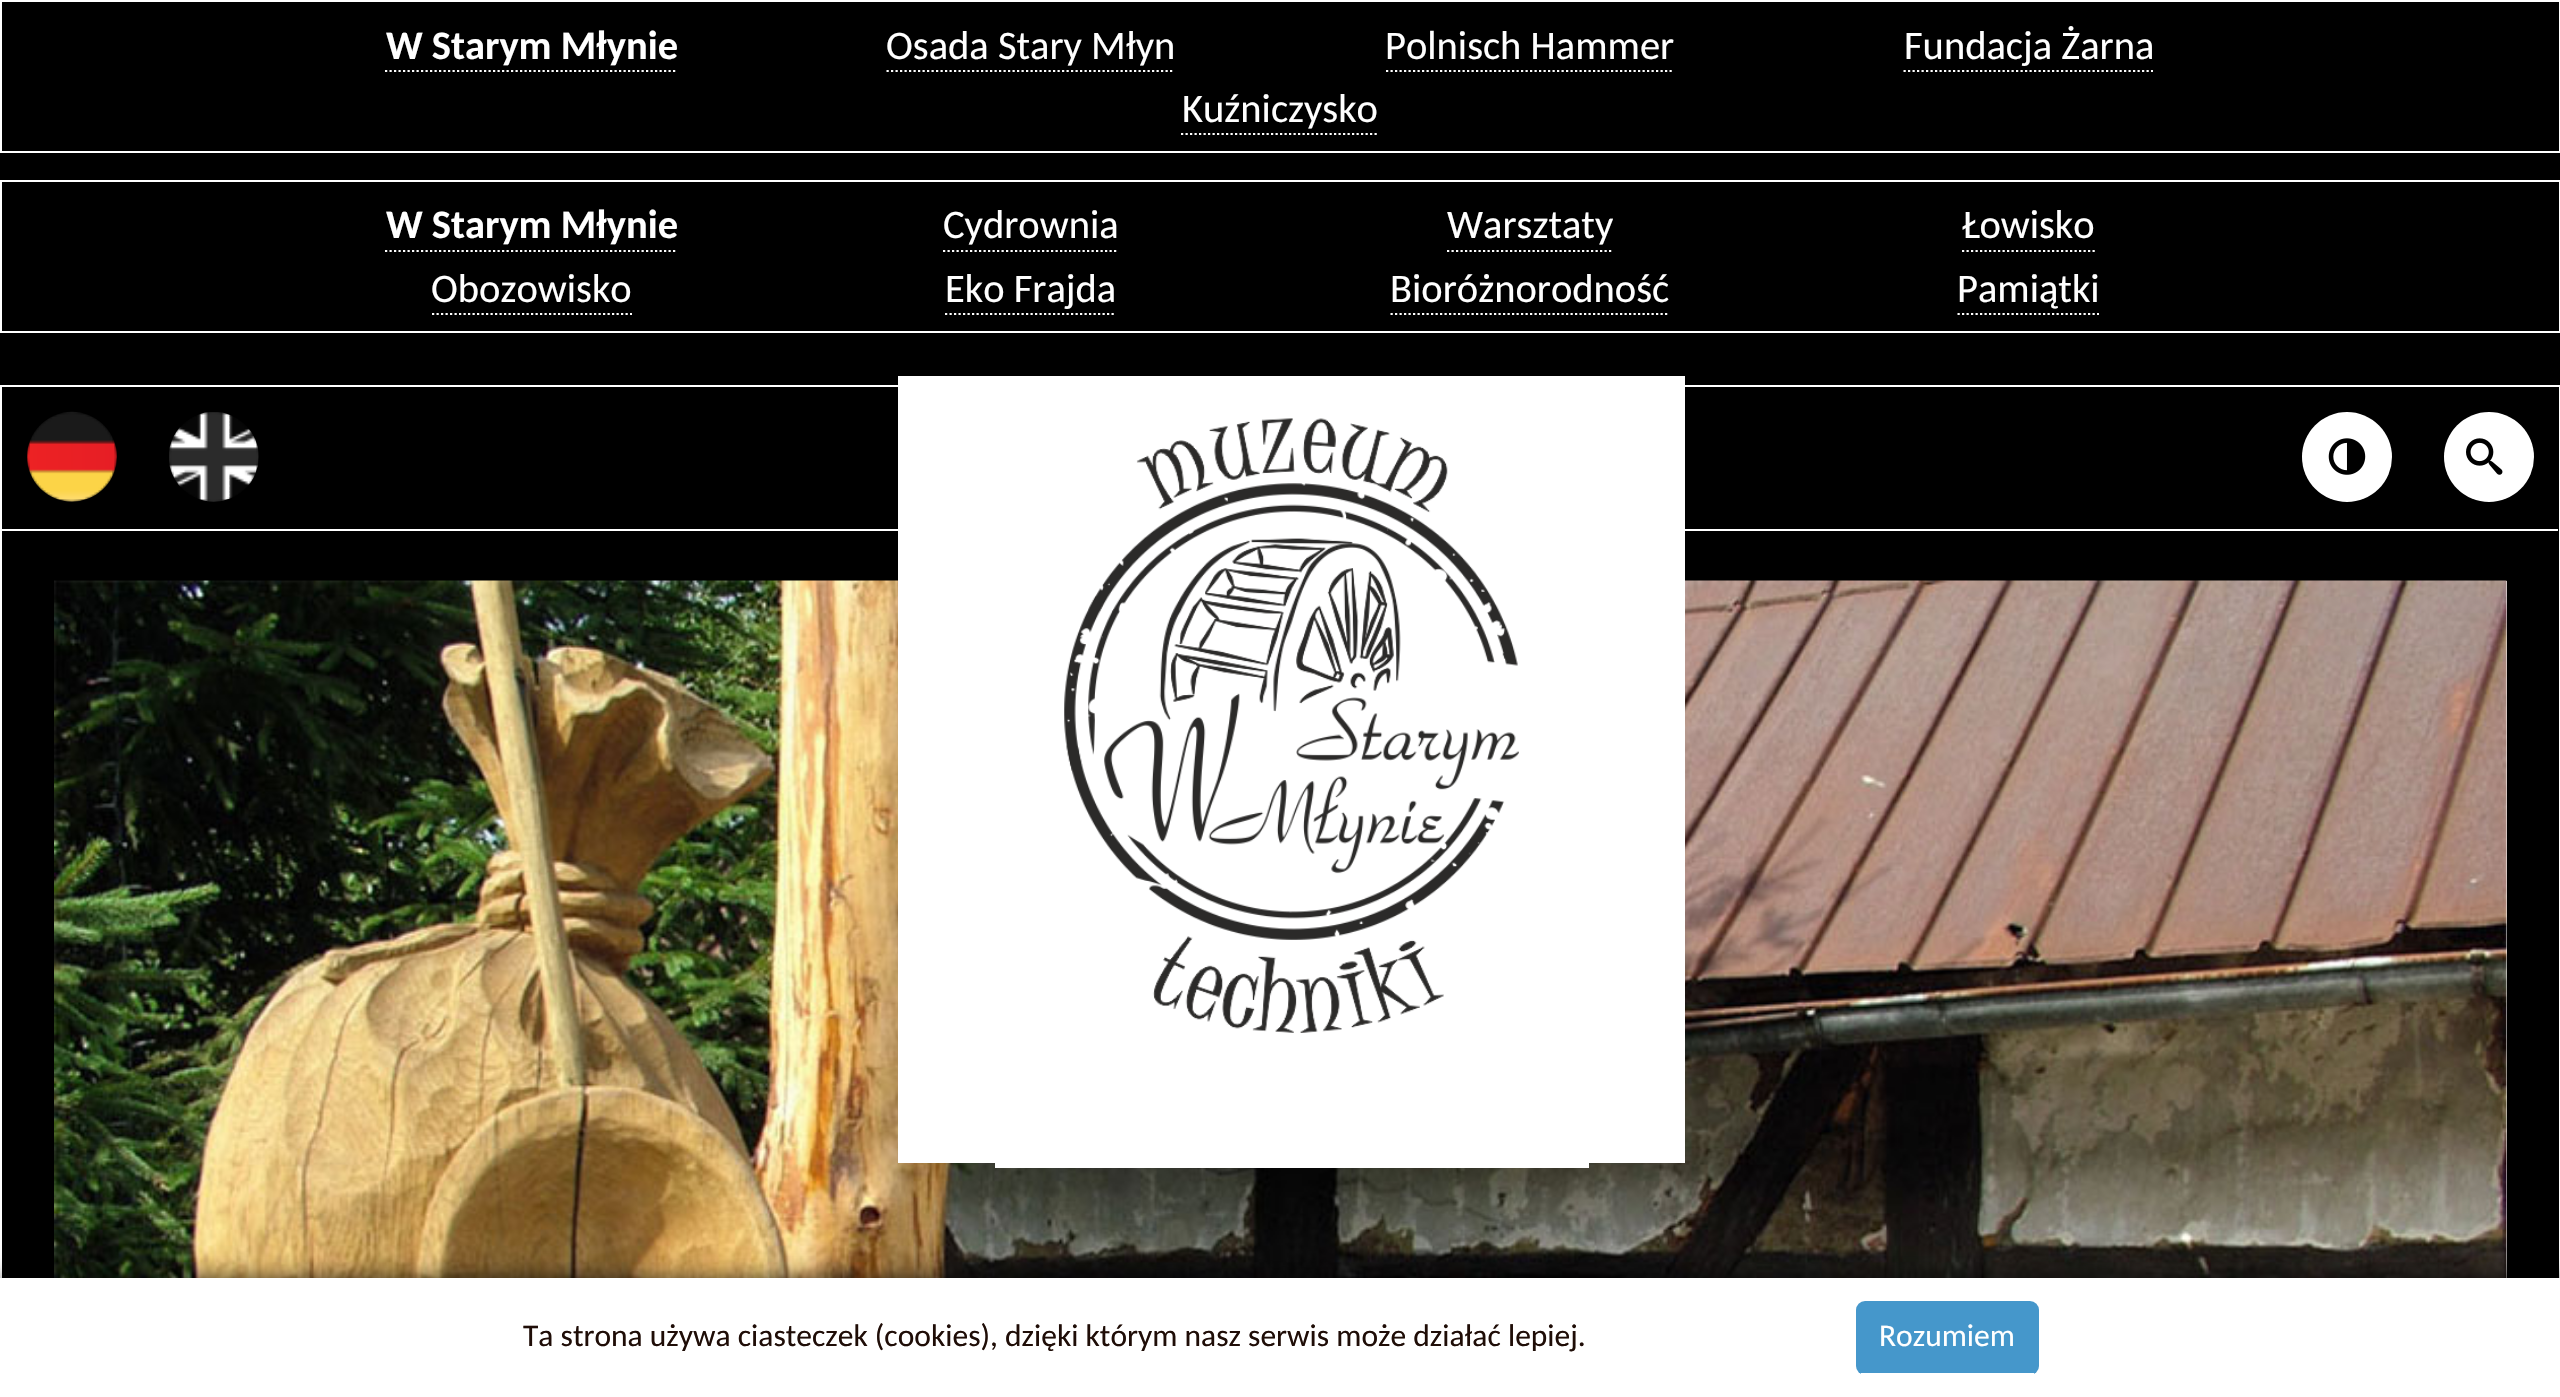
void draw(SkCanvas* canvas) {
	SkPaint paint;
	paint.setAntiAlias(true);
	auto svgPath = [&](const char* data, bool evenOdd = false) {
		SkPath result = *SkParsePath::FromSVGString(data);
		if (evenOdd) result.setFillType(SkPathFillType::kEvenOdd);
		return result;
	};
	canvas->clear(0xff000000);
	paint.setStroke(true);
	paint.setStrokeWidth(2);
	paint.setColor(0xffffffff);
	canvas->drawRect(SkRect::MakeXYWH(1, 1, 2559, 151), paint);
	SkFont f1(fontMgr->matchFamilyStyle("Carlito", SkFontStyle::Bold()), 40.5);
	f1.setSubpixel(true);
	paint.setStroke(false);
	canvas->drawString("W Starym Młynie", 386, 59, f1, paint);
	paint.setStroke(true);
	paint.setStrokeWidth(2.2);
	paint.setPathEffect(SkDashPathEffect::Make({{2.25f, 2.25f}}, 0));
	canvas->drawPath(svgPath("M385 71H677"), paint);
	paint.setPathEffect(nullptr);
	SkFont f2(fontMgr->matchFamilyStyle("Carlito", SkFontStyle::Normal()), 40.5);
	f2.setSubpixel(true);
	paint.setStroke(false);
	canvas->drawString("Osada Stary Młyn", 886, 59, f2, paint);
	paint.setStroke(true);
	paint.setPathEffect(SkDashPathEffect::Make({{2.25f, 2.25f}}, 0));
	canvas->drawPath(svgPath("M886.5 71H1174.5"), paint);
	paint.setPathEffect(nullptr);
	paint.setStroke(false);
	canvas->drawString("Polnisch Hammer", 1385, 59, f2, paint);
	paint.setStroke(true);
	paint.setPathEffect(SkDashPathEffect::Make({{2.25f, 2.25f}}, 0));
	canvas->drawPath(svgPath("M1386 71H1674"), paint);
	paint.setPathEffect(nullptr);
	paint.setStroke(false);
	canvas->drawString("Fundacja Żarna", 1904, 59, f2, paint);
	paint.setStroke(true);
	paint.setPathEffect(SkDashPathEffect::Make({{2.25f, 2.25f}}, 0));
	canvas->drawPath(svgPath("M1903.5 71H2153"), paint);
	paint.setPathEffect(nullptr);
	paint.setStroke(false);
	canvas->drawString("Kuźniczysko", 1182, 122, f2, paint);
	paint.setStroke(true);
	paint.setPathEffect(SkDashPathEffect::Make({{2.25f, 2.25f}}, 0));
	canvas->drawPath(svgPath("M1181 134H1379"), paint);
	paint.setPathEffect(nullptr);
	paint.setStrokeWidth(2);
	canvas->drawRect(SkRect::MakeXYWH(1, 181, 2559, 151), paint);
	paint.setStroke(false);
	canvas->drawString("W Starym Młynie", 386, 238, f1, paint);
	paint.setStroke(true);
	paint.setStrokeWidth(2.2);
	paint.setPathEffect(SkDashPathEffect::Make({{2.25f, 2.25f}}, 0));
	canvas->drawPath(svgPath("M385 251H677"), paint);
	paint.setPathEffect(nullptr);
	paint.setStroke(false);
	canvas->drawString("Cydrownia", 943, 238, f2, paint);
	paint.setStroke(true);
	paint.setPathEffect(SkDashPathEffect::Make({{2.25f, 2.25f}}, 0));
	canvas->drawPath(svgPath("M943 251H1118"), paint);
	paint.setPathEffect(nullptr);
	paint.setStroke(false);
	canvas->drawString("Warsztaty", 1447, 238, f2, paint);
	paint.setStroke(true);
	paint.setPathEffect(SkDashPathEffect::Make({{2.25f, 2.25f}}, 0));
	canvas->drawPath(svgPath("M1447 251H1613"), paint);
	paint.setPathEffect(nullptr);
	paint.setStroke(false);
	canvas->drawString("Łowisko", 1962, 238, f2, paint);
	paint.setStroke(true);
	paint.setPathEffect(SkDashPathEffect::Make({{2.25f, 2.25f}}, 0));
	canvas->drawPath(svgPath("M1962 251H2095"), paint);
	paint.setPathEffect(nullptr);
	paint.setStroke(false);
	canvas->drawString("Obozowisko", 431, 302, f2, paint);
	paint.setStroke(true);
	paint.setPathEffect(SkDashPathEffect::Make({{2.25f, 2.25f}}, 0));
	canvas->drawPath(svgPath("M432 314H632"), paint);
	paint.setPathEffect(nullptr);
	paint.setStroke(false);
	canvas->drawString("Eko Frajda", 945, 302, f2, paint);
	paint.setStroke(true);
	paint.setPathEffect(SkDashPathEffect::Make({{2.25f, 2.25f}}, 0));
	canvas->drawPath(svgPath("M945 314H1116"), paint);
	paint.setPathEffect(nullptr);
	paint.setStroke(false);
	canvas->drawString("Bioróżnorodność", 1390, 302, f2, paint);
	paint.setStroke(true);
	paint.setPathEffect(SkDashPathEffect::Make({{2.25f, 2.25f}}, 0));
	canvas->drawPath(svgPath("M1390.5 314H1669.5"), paint);
	paint.setPathEffect(nullptr);
	paint.setStroke(false);
	canvas->drawString("Pamiątki", 1957, 302, f2, paint);
	paint.setStroke(true);
	paint.setPathEffect(SkDashPathEffect::Make({{2.25f, 2.25f}}, 0));
	canvas->drawPath(svgPath("M1957.5 314H2099"), paint);
	paint.setPathEffect(nullptr);
	paint.setStrokeWidth(2);
	canvas->drawRect(SkRect::MakeXYWH(1, 386, 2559, 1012), paint);
	paint.setStroke(false);
	canvas->drawRect(SkRect::MakeXYWH(2, 529, 2556, 2), paint);
	canvas->drawRect(SkRect::MakeXYWH(2506, 581, 1, 697), paint);
	canvas->drawImageRect(SkImages::DeferredFromEncodedData(SkData::MakeFromFileName("img6.png")), SkRect::MakeXYWH(54, 580, 2453, 698), SkSamplingOptions());
	canvas->drawRect(SkRect::MakeXYWH(898, 376, 787, 787), paint);
	canvas->drawImageRect(SkImages::DeferredFromEncodedData(SkData::MakeFromFileName("img1.png")), SkRect::MakeXYWH(1064, 418, 455, 615), SkSamplingOptions());
	canvas->drawRect(SkRect::MakeXYWH(995, 1163, 594, 5), paint);
	canvas->drawImageRect(SkImages::DeferredFromEncodedData(SkData::MakeFromFileName("img2.png")), SkRect::MakeXYWH(27, 411, 90, 91), SkSamplingOptions());
	canvas->drawImageRect(SkImages::DeferredFromEncodedData(SkData::MakeFromFileName("img3.png")), SkRect::MakeXYWH(169, 412, 90, 90), SkSamplingOptions());
	canvas->drawCircle(2347, 457, 45, paint);
	canvas->drawImageRect(SkImages::DeferredFromEncodedData(SkData::MakeFromFileName("img4.png")), SkRect::MakeXYWH(2328, 438, 38, 37), SkSamplingOptions());
	canvas->drawCircle(2489, 457, 45, paint);
	canvas->drawImageRect(SkImages::DeferredFromEncodedData(SkData::MakeFromFileName("img5.png")), SkRect::MakeXYWH(2466, 438, 37, 37), SkSamplingOptions());
	paint.setColor(0xbf000000);
	paint.setMaskFilter(SkMaskFilter::MakeBlur(kNormal_SkBlurStyle, 11));
	canvas->drawRect(SkRect::MakeXYWH(0, 1278, 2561, 119), paint);
	paint.setMaskFilter(nullptr);
	paint.setColor(0xffffffff);
	canvas->drawRect(SkRect::MakeXYWH(0, 1278, 2560, 119), paint);
	SkFont f3(fontMgr->matchFamilyStyle("Carlito", SkFontStyle::Normal()), 31.5);
	f3.setSubpixel(true);
	paint.setColor(0xff1f0d07);
	canvas->drawString("Ta strona używa ciasteczek (cookies), dzięki którym nasz serwis może działać lepiej.", 523, 1346, f3, paint);
	paint.setColor(0xff4597cb);
	canvas->drawRoundRect(SkRect::MakeXYWH(1856, 1301, 183, 74), 9, 9, paint);
	paint.setColor(0xffffffff);
	canvas->drawRect(SkRect::MakeXYWH(1861, 1373, 173, 2), paint);
	canvas->drawString("Rozumiem", 1879, 1346, f3, paint);
}
